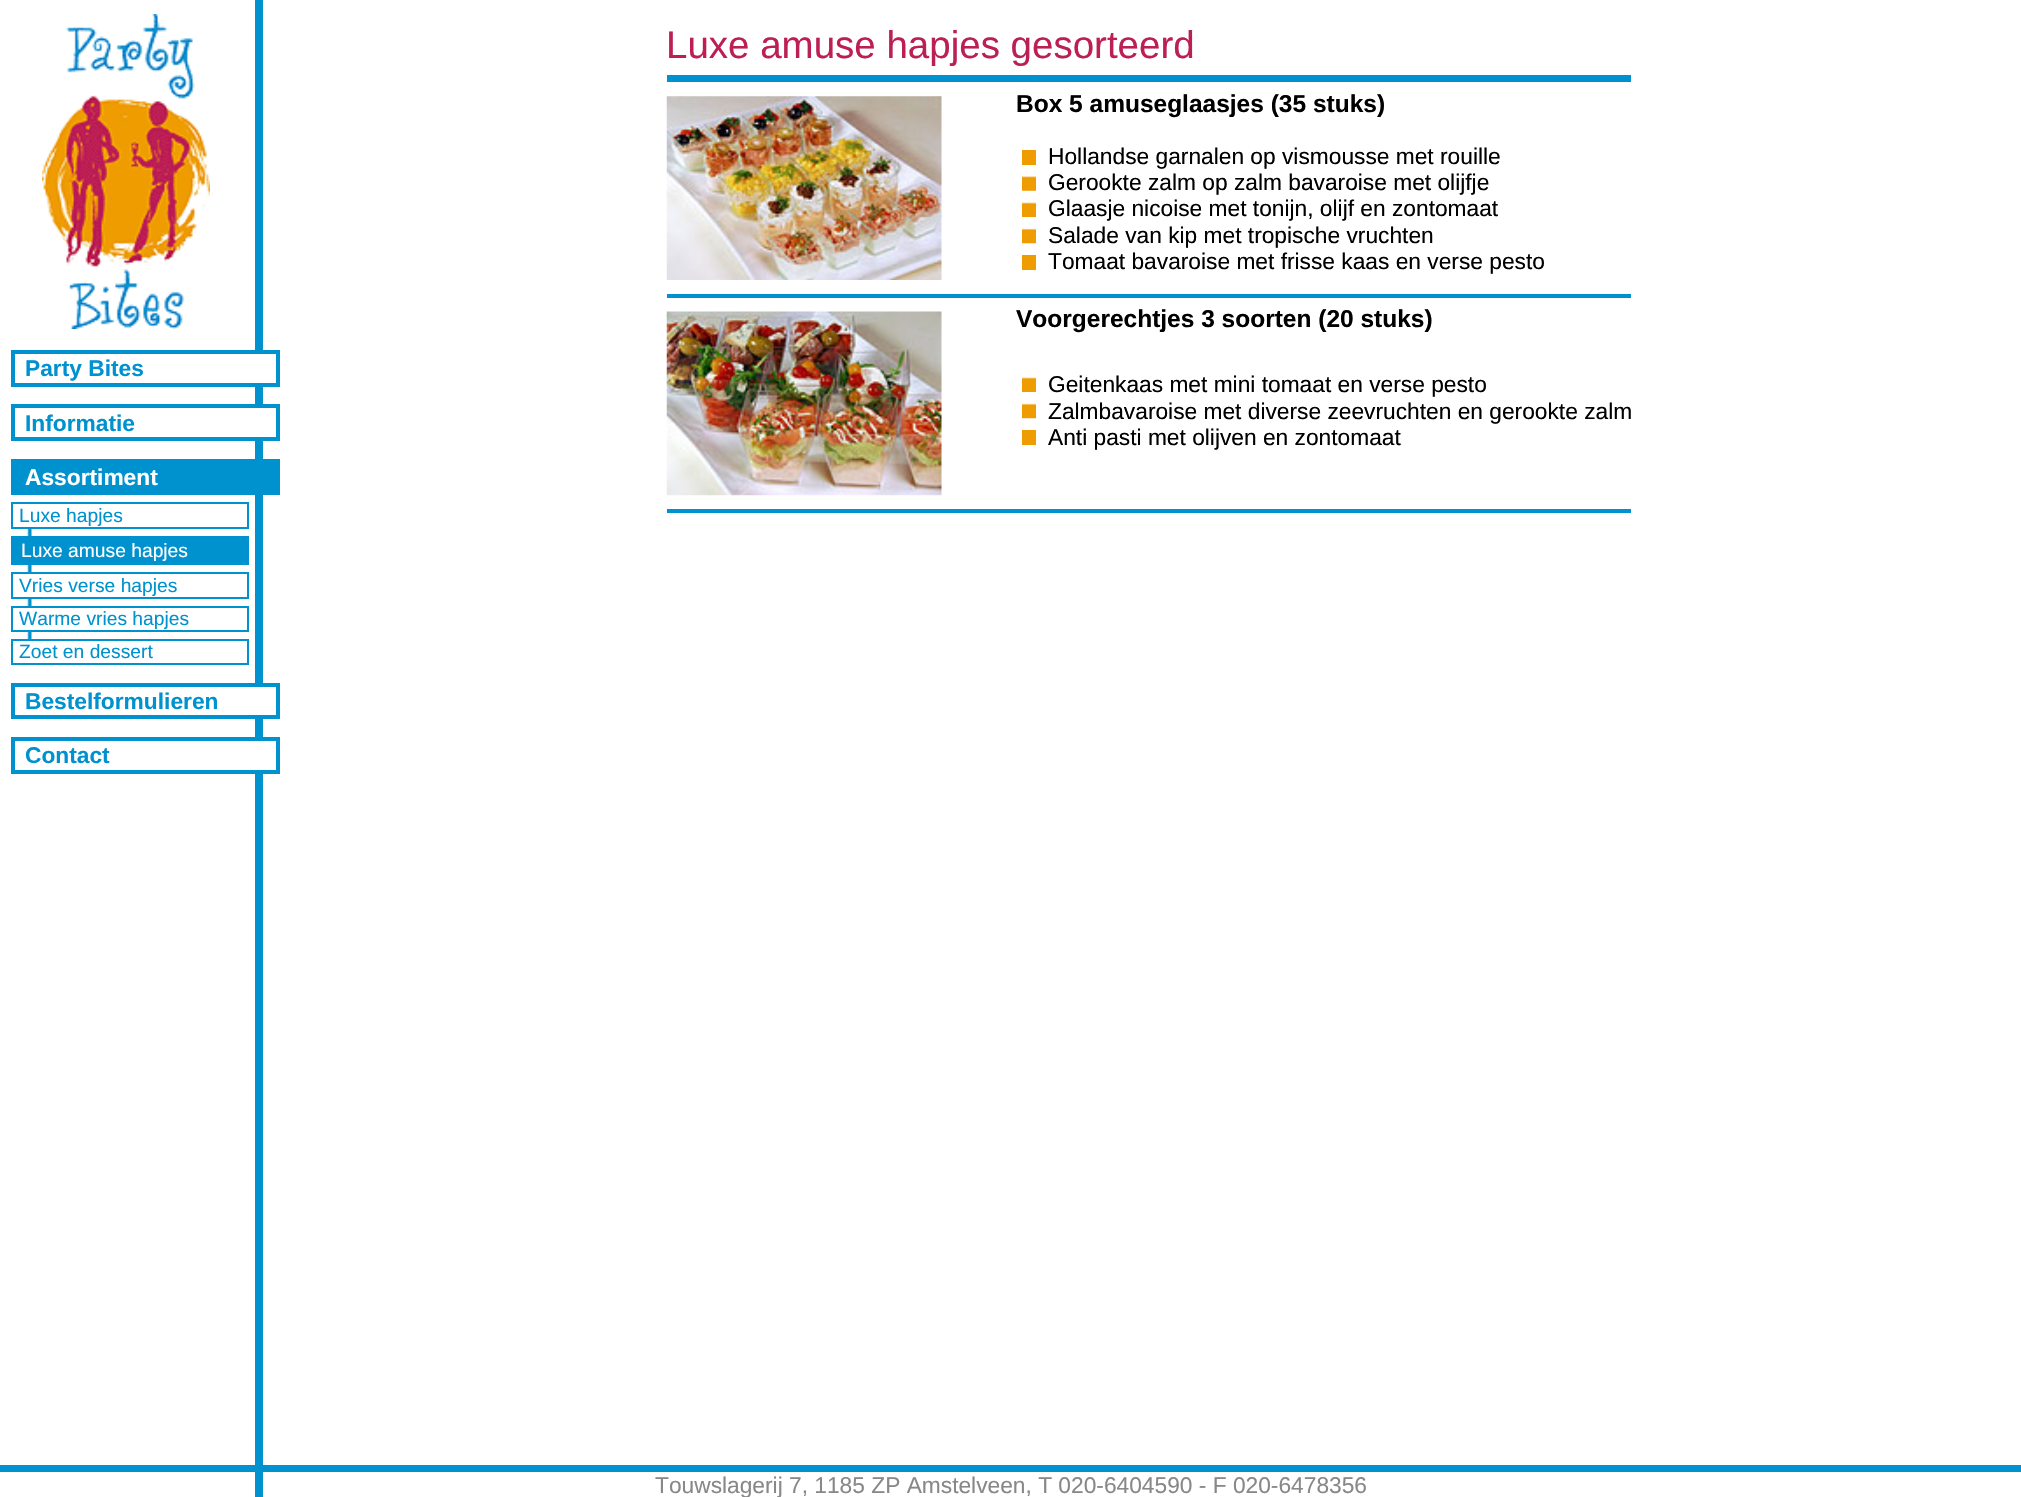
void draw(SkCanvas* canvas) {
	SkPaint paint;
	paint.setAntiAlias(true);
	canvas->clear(0xffffffff);
	paint.setColor(0xff0091cf);
	canvas->drawRect(SkRect::MakeXYWH(255, 0, 8, 1497), paint);
	canvas->drawImageRect(SkImages::DeferredFromEncodedData(SkData::MakeFromFileName("img1.png")), SkRect::MakeXYWH(42, 14, 168, 315), SkSamplingOptions());
	canvas->drawRect(SkRect::MakeXYWH(667, 75, 964, 7), paint);
	SkFont f1(fontMgr->matchFamilyStyle("Liberation Sans", SkFontStyle::Normal()), 38.5);
	f1.setSubpixel(true);
	paint.setColor(0xffbc1f53);
	canvas->drawString("Luxe amuse hapjes gesorteerd", 666, 58, f1, paint);
	SkFont f2(fontMgr->matchFamilyStyle("Liberation Sans", SkFontStyle::Bold()), 24.5);
	f2.setSubpixel(true);
	paint.setColor(0xff000000);
	canvas->drawString("Box 5 amuseglaasjes (35 stuks)", 1016, 112, f2, paint);
	paint.setColor(0xff0091cf);
	canvas->drawRect(SkRect::MakeXYWH(667, 294, 964, 4), paint);
	canvas->drawImageRect(SkImages::DeferredFromEncodedData(SkData::MakeFromFileName("img2.png")), SkRect::MakeXYWH(666, 96, 276, 184), SkSamplingOptions());
	paint.setColor(0xffee9c00);
	canvas->drawRect(SkRect::MakeXYWH(1022, 150, 14, 15), paint);
	SkFont f3(fontMgr->matchFamilyStyle("Liberation Sans", SkFontStyle::Normal()), 22.75);
	f3.setSubpixel(true);
	paint.setColor(0xff000000);
	canvas->drawString("Hollandse garnalen op vismousse met rouille", 1048, 164, f3, paint);
	canvas->drawImageRect(SkImages::DeferredFromEncodedData(SkData::MakeFromFileName("img3.png")), SkRect::MakeXYWH(1022, 176, 14, 15), SkSamplingOptions());
	canvas->drawString("Gerookte zalm op zalm bavaroise met olijfje", 1048, 190, f3, paint);
	canvas->drawImageRect(SkImages::DeferredFromEncodedData(SkData::MakeFromFileName("img4.png")), SkRect::MakeXYWH(1022, 202, 14, 15), SkSamplingOptions());
	canvas->drawString("Glaasje nicoise met tonijn, olijf en zontomaat", 1048, 216, f3, paint);
	canvas->drawImageRect(SkImages::DeferredFromEncodedData(SkData::MakeFromFileName("img5.png")), SkRect::MakeXYWH(1022, 228, 14, 16), SkSamplingOptions());
	canvas->drawString("Salade van kip met tropische vruchten", 1048, 243, f3, paint);
	paint.setColor(0xffee9c00);
	canvas->drawRect(SkRect::MakeXYWH(1022, 255, 14, 15), paint);
	paint.setColor(0xff000000);
	canvas->drawString("Tomaat bavaroise met frisse kaas en verse pesto", 1048, 269, f3, paint);
	canvas->drawString("Voorgerechtjes 3 soorten (20 stuks)", 1016, 327, f2, paint);
	paint.setColor(0xff0091cf);
	canvas->drawRect(SkRect::MakeXYWH(667, 509, 964, 4), paint);
	canvas->drawImageRect(SkImages::DeferredFromEncodedData(SkData::MakeFromFileName("img6.png")), SkRect::MakeXYWH(666, 311, 276, 185), SkSamplingOptions());
	canvas->drawImageRect(SkImages::DeferredFromEncodedData(SkData::MakeFromFileName("img4.png")), SkRect::MakeXYWH(1022, 377, 14, 15), SkSamplingOptions());
	paint.setColor(0xff000000);
	canvas->drawString("Geitenkaas met mini tomaat en verse pesto", 1048, 392, f3, paint);
	canvas->drawImageRect(SkImages::DeferredFromEncodedData(SkData::MakeFromFileName("img5.png")), SkRect::MakeXYWH(1022, 403, 14, 16), SkSamplingOptions());
	canvas->drawString("Zalmbavaroise met diverse zeevruchten en gerookte zalm", 1048, 419, f3, paint);
	paint.setColor(0xffee9c00);
	canvas->drawRect(SkRect::MakeXYWH(1022, 430, 14, 15), paint);
	paint.setColor(0xff000000);
	canvas->drawString("Anti pasti met olijven en zontomaat", 1048, 445, f3, paint);
	paint.setColor(0xff0091cf);
	canvas->drawRect(SkRect::MakeXYWH(0, 1465, 2021, 7), paint);
	paint.setColor(0xff888888);
	canvas->drawString("Touwslagerij 7, 1185 ZP Amstelveen, T 020-6404590 - F 020-6478356", 655, 1493, f3, paint);
	paint.setColor(0xffffffff);
	canvas->drawRect(SkRect::MakeXYWH(255, 354, 8, 29), paint);
	paint.setStroke(true);
	paint.setStrokeWidth(4);
	paint.setColor(0xff0091cf);
	canvas->drawRect(SkRect::MakeXYWH(13, 352, 265, 33), paint);
	SkFont f4(fontMgr->matchFamilyStyle("Liberation Sans", SkFontStyle::Bold()), 22.75);
	f4.setSubpixel(true);
	paint.setStroke(false);
	canvas->drawString("Party Bites", 25, 376, f4, paint);
	paint.setColor(0xffffffff);
	canvas->drawRect(SkRect::MakeXYWH(255, 408, 8, 29), paint);
	paint.setStroke(true);
	paint.setColor(0xff0091cf);
	canvas->drawRect(SkRect::MakeXYWH(13, 406, 265, 33), paint);
	paint.setStroke(false);
	canvas->drawString("Informatie", 25, 431, f4, paint);
	canvas->drawRect(SkRect::MakeXYWH(11, 459, 269, 36), paint);
	paint.setColor(0xffffffff);
	canvas->drawString("Assortiment", 25, 485, f4, paint);
	canvas->drawImageRect(SkImages::DeferredFromEncodedData(SkData::MakeFromFileName("img7.png")), SkRect::MakeXYWH(27, 529, 5, 110), SkSamplingOptions());
	paint.setStroke(true);
	paint.setStrokeWidth(2);
	paint.setColor(0xff0091cf);
	canvas->drawRect(SkRect::MakeXYWH(12, 503, 236, 25), paint);
	SkFont f5(fontMgr->matchFamilyStyle("Liberation Sans", SkFontStyle::Normal()), 19.25);
	f5.setSubpixel(true);
	paint.setStroke(false);
	canvas->drawString("Luxe hapjes", 19, 522, f5, paint);
	canvas->drawRect(SkRect::MakeXYWH(11, 536, 238, 29), paint);
	paint.setColor(0xffffffff);
	canvas->drawString("Luxe amuse hapjes", 21, 557, f5, paint);
	canvas->drawRect(SkRect::MakeXYWH(27, 574, 5, 23), paint);
	paint.setStroke(true);
	paint.setColor(0xff0091cf);
	canvas->drawRect(SkRect::MakeXYWH(12, 573, 236, 25), paint);
	paint.setStroke(false);
	canvas->drawString("Vries verse hapjes", 19, 592, f5, paint);
	paint.setColor(0xffffffff);
	canvas->drawRect(SkRect::MakeXYWH(27, 608, 5, 22), paint);
	paint.setStroke(true);
	paint.setColor(0xff0091cf);
	canvas->drawRect(SkRect::MakeXYWH(12, 607, 236, 24), paint);
	paint.setStroke(false);
	canvas->drawString("Warme vries hapjes", 19, 625, f5, paint);
	paint.setStroke(true);
	canvas->drawRect(SkRect::MakeXYWH(12, 640, 236, 24), paint);
	paint.setStroke(false);
	canvas->drawString("Zoet en dessert", 19, 658, f5, paint);
	paint.setColor(0xffffffff);
	canvas->drawRect(SkRect::MakeXYWH(255, 687, 8, 28), paint);
	paint.setStroke(true);
	paint.setStrokeWidth(4);
	paint.setColor(0xff0091cf);
	canvas->drawRect(SkRect::MakeXYWH(13, 685, 265, 32), paint);
	paint.setStroke(false);
	canvas->drawString("Bestelformulieren", 25, 709, f4, paint);
	paint.setColor(0xffffffff);
	canvas->drawRect(SkRect::MakeXYWH(255, 741, 8, 29), paint);
	paint.setStroke(true);
	paint.setColor(0xff0091cf);
	canvas->drawRect(SkRect::MakeXYWH(13, 739, 265, 33), paint);
	paint.setStroke(false);
	canvas->drawString("Contact", 25, 763, f4, paint);
}
